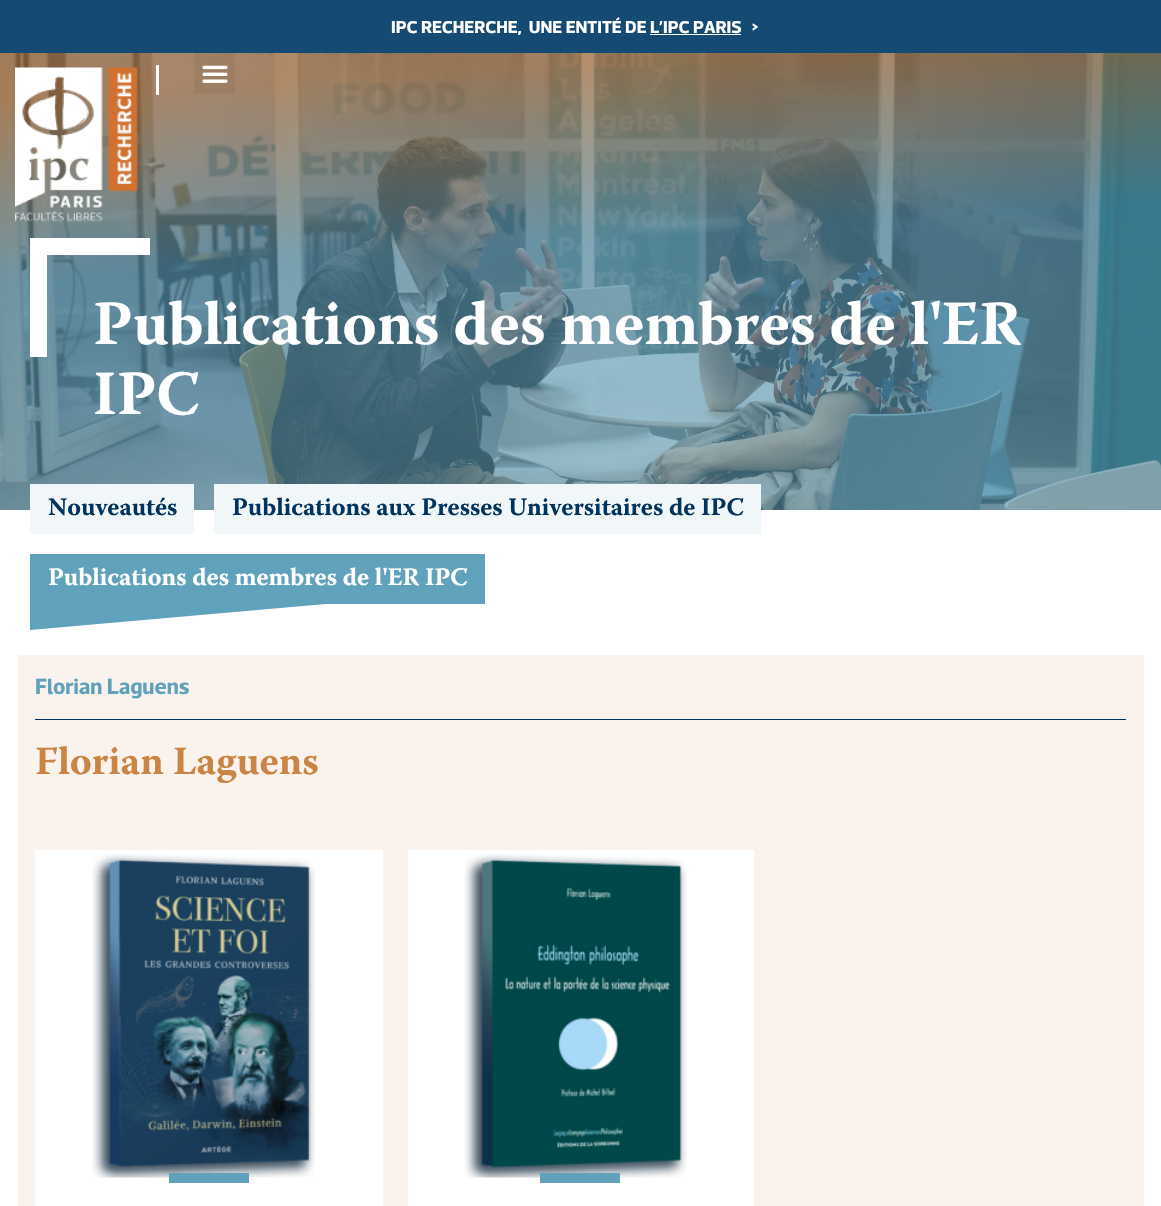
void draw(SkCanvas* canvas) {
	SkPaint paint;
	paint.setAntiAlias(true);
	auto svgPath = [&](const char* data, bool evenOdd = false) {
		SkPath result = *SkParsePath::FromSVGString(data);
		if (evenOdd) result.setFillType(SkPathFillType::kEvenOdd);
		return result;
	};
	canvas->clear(0xffffffff);
	paint.setColor(0xff154b72);
	canvas->drawRect(SkRect::MakeXYWH(0, 0, 1161, 53), paint);
	SkFont f1(fontMgr->matchFamilyStyle("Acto", SkFontStyle::Bold()), 17.5);
	f1.setSubpixel(true);
	paint.setColor(0xffffffff);
	canvas->drawString("IPC RECHERCHE,  UNE ENTITÉ DE L’IPC PARIS", 391, 33, f1, paint);
	canvas->drawString(">", 752, 33, f1, paint);
	canvas->drawRect(SkRect::MakeXYWH(650, 34, 91, 1), paint);
	canvas->drawImageRect(SkImages::DeferredFromEncodedData(SkData::MakeFromFileName("img3.png")), SkRect::MakeXYWH(0, 53, 1161, 457), SkSamplingOptions());
	canvas->drawImageRect(SkImages::DeferredFromEncodedData(SkData::MakeFromFileName("img1.png")), SkRect::MakeXYWH(15, 67, 123, 155), SkSamplingOptions());
	canvas->drawRect(SkRect::MakeXYWH(156, 65, 3, 30), paint);
	paint.setColor(0x0d000000);
	canvas->drawRect(SkRect::MakeXYWH(194, 53, 41, 41), paint);
	canvas->drawImageRect(SkImages::DeferredFromEncodedData(SkData::MakeFromFileName("img2.png")), SkRect::MakeXYWH(202, 65, 26, 18), SkSamplingOptions());
	paint.setColor(0xffffffff);
	canvas->drawPath(svgPath("M150 238V255H47V357H30V238Z"), paint);
	SkFont f2(fontMgr->matchFamilyStyle("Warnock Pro", SkFontStyle::Bold()), 62.5);
	f2.setSubpixel(true);
	canvas->drawString("Publications des membres de l'ER", 93, 344, f2, paint);
	canvas->drawString("IPC", 93, 414, f2, paint);
	paint.setColor(0xfff1f6f8);
	canvas->drawRect(SkRect::MakeXYWH(30, 484, 164, 50), paint);
	SkFont f3(fontMgr->matchFamilyStyle("Warnock Pro", SkFontStyle::Bold()), 25);
	f3.setSubpixel(true);
	paint.setColor(0xff00335e);
	canvas->drawString("Nouveautés", 48, 515, f3, paint);
	paint.setColor(0xfff1f6f8);
	canvas->drawRect(SkRect::MakeXYWH(214, 484, 547, 50), paint);
	paint.setColor(0xff00335e);
	canvas->drawString("Publications aux Presses Universitaires de IPC", 232, 515, f3, paint);
	paint.setColor(0xff60a1bb);
	canvas->drawPath(svgPath("M30 594L485 554V590L30 630Z"), paint);
	canvas->drawRect(SkRect::MakeXYWH(30, 554, 455, 50), paint);
	paint.setColor(0xffffffff);
	canvas->drawString("Publications des membres de l'ER IPC", 48, 585, f3, paint);
	paint.setColor(0xfffaf2ec);
	canvas->drawRect(SkRect::MakeXYWH(18, 655, 1126, 551), paint);
	paint.setColor(0xff00335e);
	canvas->drawRect(SkRect::MakeXYWH(35, 719, 1091, 1), paint);
	SkFont f4(fontMgr->matchFamilyStyle("Acto", SkFontStyle::Bold()), 22.5);
	f4.setSubpixel(true);
	paint.setColor(0xff60a1bb);
	canvas->drawString("Florian Laguens", 35, 694, f4, paint);
	SkFont f5(fontMgr->matchFamilyStyle("Warnock Pro", SkFontStyle::Bold()), 40);
	f5.setSubpixel(true);
	paint.setColor(0xffca8443);
	canvas->drawString("Florian Laguens", 35, 774, f5, paint);
	paint.setColor(0xffffffff);
	canvas->drawRect(SkRect::MakeXYWH(35, 850, 348, 356), paint);
	canvas->drawImageRect(SkImages::DeferredFromEncodedData(SkData::MakeFromFileName("img4.png")), SkRect::MakeXYWH(92, 854, 223, 324), SkSamplingOptions());
	paint.setColor(0xff60a1bb);
	canvas->drawRect(SkRect::MakeXYWH(169, 1173, 80, 10), paint);
	paint.setColor(0xffffffff);
	canvas->drawRect(SkRect::MakeXYWH(408, 850, 346, 356), paint);
	canvas->drawImageRect(SkImages::DeferredFromEncodedData(SkData::MakeFromFileName("img5.png")), SkRect::MakeXYWH(464, 854, 223, 324), SkSamplingOptions());
	paint.setColor(0xff60a1bb);
	canvas->drawRect(SkRect::MakeXYWH(540, 1173, 80, 10), paint);
}
